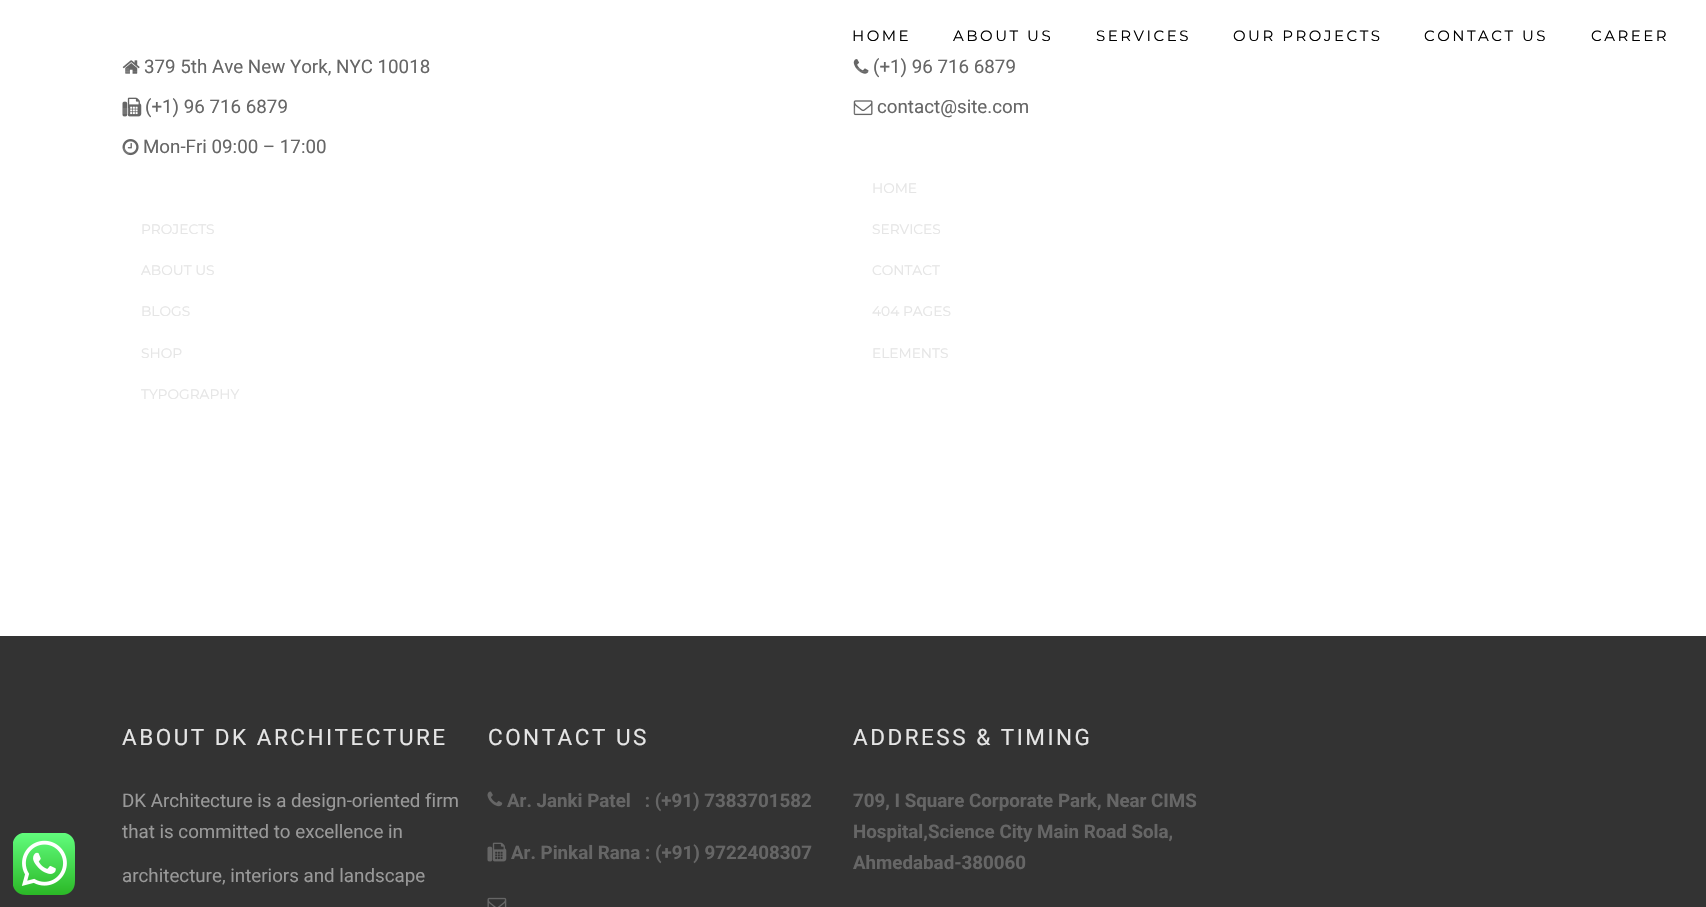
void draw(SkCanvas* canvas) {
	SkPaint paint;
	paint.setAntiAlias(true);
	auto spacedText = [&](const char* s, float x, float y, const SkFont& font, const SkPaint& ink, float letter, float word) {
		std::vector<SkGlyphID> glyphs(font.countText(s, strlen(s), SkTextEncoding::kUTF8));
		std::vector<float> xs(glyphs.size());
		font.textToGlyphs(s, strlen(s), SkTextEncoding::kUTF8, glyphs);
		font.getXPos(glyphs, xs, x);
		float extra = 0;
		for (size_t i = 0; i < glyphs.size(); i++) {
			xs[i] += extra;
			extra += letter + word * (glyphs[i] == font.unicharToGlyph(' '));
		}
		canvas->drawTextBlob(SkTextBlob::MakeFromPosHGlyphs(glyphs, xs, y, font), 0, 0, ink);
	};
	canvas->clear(0xffffffff);
	paint.setColor(0xff333333);
	canvas->drawRect(SkRect::MakeXYWH(0, 636, 1706, 271), paint);
	canvas->drawImageRect(SkImages::DeferredFromEncodedData(SkData::MakeFromFileName("img1.png")), SkRect::MakeXYWH(13, 833, 62, 62), SkSamplingOptions());
	canvas->drawImageRect(SkImages::DeferredFromEncodedData(SkData::MakeFromFileName("img2.png")), SkRect::MakeXYWH(122, 60, 18, 14), SkSamplingOptions());
	paint.setColor(0x1affffff);
	canvas->drawRect(SkRect::MakeXYWH(123, 68, 6, 6), paint);
	canvas->drawImageRect(SkImages::DeferredFromEncodedData(SkData::MakeFromFileName("img3.png")), SkRect::MakeXYWH(853, 59, 16, 15), SkSamplingOptions());
	canvas->drawRect(SkRect::MakeXYWH(854, 68, 6, 4), paint);
	paint.setColor(0x14ffffff);
	canvas->drawRect(SkRect::MakeXYWH(125, 71, 888, 1), paint);
	SkFont f1(fontMgr->matchFamilyStyle("Montserrat", SkFontStyle::Normal()), 15);
	f1.setSubpixel(true);
	paint.setColor(0xff000000);
	spacedText("HOME", 852, 41, f1, paint, 2.5, 0);
	spacedText("ABOUT US", 953, 41, f1, paint, 2.5, 0);
	spacedText("SERVICES", 1096, 41, f1, paint, 2.5, 0);
	spacedText("OUR PROJECTS", 1233, 41, f1, paint, 2.5, 0);
	spacedText("CONTACT US", 1424, 41, f1, paint, 2.5, 0);
	spacedText("CAREER", 1591, 41, f1, paint, 2.5, 0);
	SkFont f2(fontMgr->matchFamilyStyle("Roboto", SkFontStyle::Normal()), 18.75);
	f2.setSubpixel(true);
	paint.setColor(0xff666666);
	canvas->drawString("379 5th Ave New York, NYC 10018", 144, 73, f2, paint);
	canvas->drawString("(+1) 96 716 6879", 873, 73, f2, paint);
	canvas->drawImageRect(SkImages::DeferredFromEncodedData(SkData::MakeFromFileName("img4.png")), SkRect::MakeXYWH(122, 97, 20, 20), SkSamplingOptions());
	canvas->drawString("(+1) 96 716 6879", 145, 113, f2, paint);
	paint.setColor(0x1affffff);
	canvas->drawRect(SkRect::MakeXYWH(123, 108, 6, 6), paint);
	canvas->drawImageRect(SkImages::DeferredFromEncodedData(SkData::MakeFromFileName("img5.png")), SkRect::MakeXYWH(853, 100, 20, 16), SkSamplingOptions());
	paint.setColor(0xff666666);
	canvas->drawString("contact@site.com", 877, 113, f2, paint);
	paint.setColor(0x1affffff);
	canvas->drawRect(SkRect::MakeXYWH(854, 108, 6, 6), paint);
	canvas->drawImageRect(SkImages::DeferredFromEncodedData(SkData::MakeFromFileName("img6.png")), SkRect::MakeXYWH(122, 139, 17, 17), SkSamplingOptions());
	paint.setColor(0xff666666);
	canvas->drawString("Mon-Fri 09:00 – 17:00", 143, 153, f2, paint);
	paint.setColor(0x1affffff);
	canvas->drawRect(SkRect::MakeXYWH(123, 148, 6, 6), paint);
	SkFont f3(fontMgr->matchFamilyStyle("Montserrat", SkFontStyle::Normal()), 13.75);
	f3.setSubpixel(true);
	paint.setColor(0xffe5e5e5);
	canvas->drawString("HOME", 872, 193, f3, paint);
	canvas->drawString("PROJECTS", 141, 234, f3, paint);
	canvas->drawString("SERVICES", 872, 234, f3, paint);
	canvas->drawString("ABOUT US", 141, 275, f3, paint);
	canvas->drawString("CONTACT", 872, 275, f3, paint);
	canvas->drawString("BLOGS", 141, 316, f3, paint);
	canvas->drawString("404 PAGES", 872, 316, f3, paint);
	canvas->drawString("SHOP", 141, 358, f3, paint);
	canvas->drawString("ELEMENTS", 872, 358, f3, paint);
	canvas->drawString("TYPOGRAPHY", 141, 399, f3, paint);
	SkFont f4(fontMgr->matchFamilyStyle("Roboto", SkFontStyle::Normal()), 22.5);
	f4.setSubpixel(true);
	spacedText("ABOUT DK ARCHITECTURE", 122, 745, f4, paint, 2.5, 0);
	paint.setColor(0xff999999);
	canvas->drawString("DK Architecture is a design-oriented firm", 122, 807, f2, paint);
	canvas->drawString("that is committed to excellence in", 122, 838, f2, paint);
	canvas->drawString("architecture, interiors and landscape", 122, 882, f2, paint);
	paint.setColor(0xffe5e5e5);
	spacedText("CONTACT US", 488, 745, f4, paint, 2.5, 0);
	canvas->drawImageRect(SkImages::DeferredFromEncodedData(SkData::MakeFromFileName("img7.png")), SkRect::MakeXYWH(487, 791, 16, 16), SkSamplingOptions());
	SkFont f5(fontMgr->matchFamilyStyle("Roboto", SkFontStyle::Bold()), 18.75);
	f5.setSubpixel(true);
	paint.setColor(0xff666666);
	canvas->drawString("Ar. Janki Patel   : (+91) 7383701582", 507, 807, f5, paint);
	canvas->drawImageRect(SkImages::DeferredFromEncodedData(SkData::MakeFromFileName("img8.png")), SkRect::MakeXYWH(487, 842, 20, 20), SkSamplingOptions());
	canvas->drawString("Ar. Pinkal Rana : (+91) 9722408307", 511, 859, f5, paint);
	canvas->drawImageRect(SkImages::DeferredFromEncodedData(SkData::MakeFromFileName("img9.png")), SkRect::MakeXYWH(487, 897, 20, 10), SkSamplingOptions());
	paint.setColor(0xffe5e5e5);
	spacedText("ADDRESS & TIMING", 853, 745, f4, paint, 2.5, 0);
	paint.setColor(0xff666666);
	canvas->drawString("709, I Square Corporate Park, Near CIMS", 853, 807, f5, paint);
	canvas->drawString("Hospital,Science City Main Road Sola,", 853, 838, f5, paint);
	canvas->drawString("Ahmedabad-380060", 853, 869, f5, paint);
}
